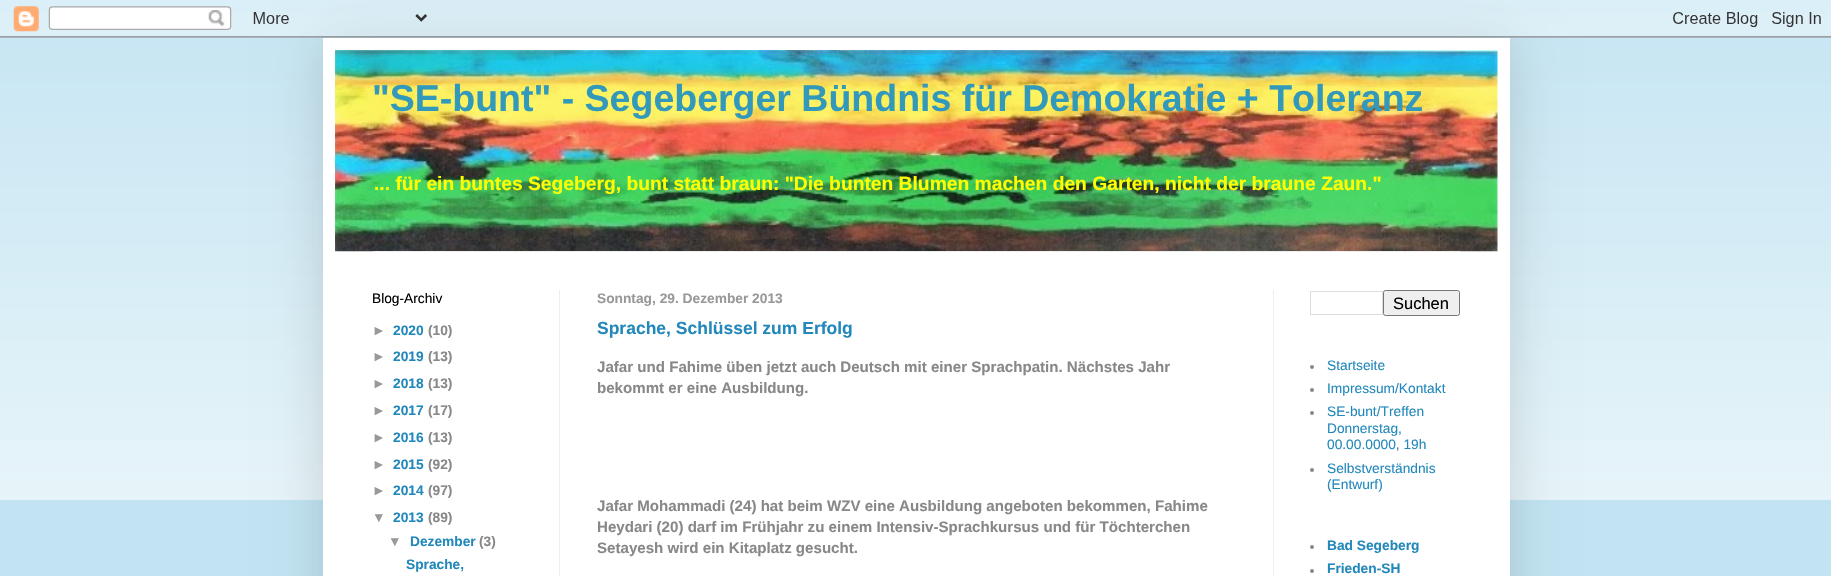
void draw(SkCanvas* canvas) {
	SkPaint paint;
	paint.setAntiAlias(true);
	canvas->clear(0xffc2e4f2);
	canvas->drawImageRect(SkImages::DeferredFromEncodedData(SkData::MakeFromFileName("img2.png")), SkRect::MakeXYWH(0, 13, 1831, 487), SkSamplingOptions());
	paint.setColor(0x26000000);
	paint.setMaskFilter(SkMaskFilter::MakeBlur(kNormal_SkBlurStyle, 25));
	canvas->drawRect(SkRect::MakeXYWH(323, 38, 1187, 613), paint);
	paint.setMaskFilter(nullptr);
	canvas->drawImageRect(SkImages::DeferredFromEncodedData(SkData::MakeFromFileName("img1.png")), SkRect::MakeXYWH(0, 0, 1831, 38), SkSamplingOptions());
	paint.setColor(0xffffffff);
	canvas->drawRect(SkRect::MakeXYWH(323, 38, 1187, 538), paint);
	canvas->drawImageRect(SkImages::DeferredFromEncodedData(SkData::MakeFromFileName("img3.png")), SkRect::MakeXYWH(335, 50, 1163, 202), SkSamplingOptions());
	SkFont f1(fontMgr->matchFamilyStyle("Liberation Sans", SkFontStyle::Bold()), 37.5);
	f1.setSubpixel(true);
	paint.setColor(0xff3399bb);
	canvas->drawString("\"SE-bunt\" - Segeberger Bündnis für Demokratie + Toleranz", 372, 111, f1, paint);
	SkFont f2(fontMgr->matchFamilyStyle("Liberation Sans", SkFontStyle::Bold()), 19.25);
	f2.setSubpixel(true);
	paint.setColor(0xffffff00);
	canvas->drawString("... für ein buntes Segeberg, bunt statt braun: \"Die bunten Blumen machen den Garten, nicht der braune Zaun.\"", 374, 190, f2, paint);
	paint.setColor(0xffeeeeee);
	canvas->drawRect(SkRect::MakeXYWH(373, 251, 1087, 1), paint);
	canvas->drawRect(SkRect::MakeXYWH(559, 290, 1, 286), paint);
	canvas->drawRect(SkRect::MakeXYWH(1273, 290, 1, 286), paint);
	SkFont f3(fontMgr->matchFamilyStyle("Liberation Sans", SkFontStyle::Normal()), 13.75);
	f3.setSubpixel(true);
	paint.setColor(0xff000000);
	canvas->drawString("Blog-Archiv", 372, 303, f3, paint);
	SkFont f4(fontMgr->matchFamilyStyle("Liberation Sans", SkFontStyle::Bold()), 13.75);
	f4.setSubpixel(true);
	paint.setColor(0xff999999);
	canvas->drawString("►", 372, 335, f4, paint);
	paint.setColor(0xff2288bb);
	canvas->drawString("2020", 393, 335, f4, paint);
	paint.setColor(0xff888888);
	canvas->drawString("(10)", 428, 335, f4, paint);
	paint.setColor(0xff999999);
	canvas->drawString("►", 372, 361, f4, paint);
	paint.setColor(0xff2288bb);
	canvas->drawString("2019", 393, 361, f4, paint);
	paint.setColor(0xff888888);
	canvas->drawString("(13)", 428, 361, f4, paint);
	paint.setColor(0xff999999);
	canvas->drawString("►", 372, 388, f4, paint);
	paint.setColor(0xff2288bb);
	canvas->drawString("2018", 393, 388, f4, paint);
	paint.setColor(0xff888888);
	canvas->drawString("(13)", 428, 388, f4, paint);
	paint.setColor(0xff999999);
	canvas->drawString("►", 372, 415, f4, paint);
	paint.setColor(0xff2288bb);
	canvas->drawString("2017", 393, 415, f4, paint);
	paint.setColor(0xff888888);
	canvas->drawString("(17)", 428, 415, f4, paint);
	paint.setColor(0xff999999);
	canvas->drawString("►", 372, 442, f4, paint);
	paint.setColor(0xff2288bb);
	canvas->drawString("2016", 393, 442, f4, paint);
	paint.setColor(0xff888888);
	canvas->drawString("(13)", 428, 442, f4, paint);
	paint.setColor(0xff999999);
	canvas->drawString("►", 372, 469, f4, paint);
	paint.setColor(0xff2288bb);
	canvas->drawString("2015", 393, 469, f4, paint);
	paint.setColor(0xff888888);
	canvas->drawString("(92)", 428, 469, f4, paint);
	paint.setColor(0xff999999);
	canvas->drawString("►", 372, 495, f4, paint);
	paint.setColor(0xff2288bb);
	canvas->drawString("2014", 393, 495, f4, paint);
	paint.setColor(0xff888888);
	canvas->drawString("(97)", 428, 495, f4, paint);
	paint.setColor(0xff999999);
	canvas->drawString("▼", 372, 522, f4, paint);
	paint.setColor(0xff2288bb);
	canvas->drawString("2013", 393, 522, f4, paint);
	paint.setColor(0xff888888);
	canvas->drawString("(89)", 428, 522, f4, paint);
	paint.setColor(0xff999999);
	canvas->drawString("▼", 388, 546, f4, paint);
	paint.setColor(0xff2288bb);
	canvas->drawString("Dezember", 410, 546, f4, paint);
	paint.setColor(0xff888888);
	canvas->drawString("(3)", 479, 546, f4, paint);
	paint.setColor(0xff2288bb);
	canvas->drawString("Sprache,", 406, 569, f4, paint);
	paint.setColor(0xff999999);
	canvas->drawString("Sonntag, 29. Dezember 2013", 597, 303, f4, paint);
	SkFont f5(fontMgr->matchFamilyStyle("Liberation Sans", SkFontStyle::Bold()), 17.5);
	f5.setSubpixel(true);
	paint.setColor(0xff2288bb);
	canvas->drawString("Sprache, Schlüssel zum Erfolg", 597, 334, f5, paint);
	SkFont f6(fontMgr->matchFamilyStyle("Liberation Sans", SkFontStyle::Bold()), 15.1);
	f6.setSubpixel(true);
	paint.setColor(0xff888888);
	canvas->drawString("Jafar und Fahime üben jetzt auch Deutsch mit einer Sprachpatin. Nächstes Jahr", 597, 372, f6, paint);
	canvas->drawString("bekommt er eine Ausbildung.", 597, 393, f6, paint);
	canvas->drawString("Jafar Mohammadi (24) hat beim WZV eine Ausbildung angeboten bekommen, Fahime", 597, 511, f6, paint);
	canvas->drawString("Heydari (20) darf im Frühjahr zu einem Intensiv-Sprachkursus und für Töchterchen", 597, 532, f6, paint);
	canvas->drawString("Setayesh wird ein Kitaplatz gesucht.", 597, 553, f6, paint);
	paint.setStroke(true);
	paint.setStrokeWidth(1);
	paint.setColor(0xffdddddd);
	canvas->drawRect(SkRect::MakeXYWH(1310.5, 291.5, 72, 23), paint);
	paint.setStroke(false);
	paint.setColor(0xffefefef);
	canvas->drawRoundRect(SkRect::MakeXYWH(1383.5, 290.5, 76, 25), 2, 2, paint);
	paint.setStroke(true);
	paint.setColor(0xff767676);
	canvas->drawRoundRect(SkRect::MakeXYWH(1383.5, 290.5, 76, 25), 2, 2, paint);
	SkFont f7(fontMgr->matchFamilyStyle("Liberation Sans", SkFontStyle::Normal()), 16.5);
	f7.setSubpixel(true);
	paint.setStroke(false);
	paint.setColor(0xff000000);
	canvas->drawString("Suchen", 1393, 309, f7, paint);
	paint.setColor(0xff888888);
	canvas->drawCircle(1312, 367, 2, paint);
	paint.setColor(0xff2288bb);
	canvas->drawString("Startseite", 1327, 370, f3, paint);
	paint.setColor(0xff888888);
	canvas->drawCircle(1312, 390, 2, paint);
	paint.setColor(0xff2288bb);
	canvas->drawString("Impressum/Kontakt", 1327, 393, f3, paint);
	paint.setColor(0xff888888);
	canvas->drawCircle(1312, 413, 2, paint);
	paint.setColor(0xff2288bb);
	canvas->drawString("SE-bunt/Treffen", 1327, 416, f3, paint);
	canvas->drawString("Donnerstag,", 1327, 433, f3, paint);
	canvas->drawString("00.00.0000, 19h", 1327, 449, f3, paint);
	paint.setColor(0xff888888);
	canvas->drawCircle(1312, 470, 2, paint);
	paint.setColor(0xff2288bb);
	canvas->drawString("Selbstverständnis", 1327, 473, f3, paint);
	canvas->drawString("(Entwurf)", 1327, 489, f3, paint);
	paint.setColor(0xff888888);
	canvas->drawCircle(1312, 547, 2, paint);
	paint.setColor(0xff2288bb);
	canvas->drawString("Bad Segeberg", 1327, 550, f4, paint);
	paint.setColor(0xff888888);
	canvas->drawCircle(1312, 571, 2, paint);
	paint.setColor(0xff2288bb);
	canvas->drawString("Frieden-SH", 1327, 573, f4, paint);
}
